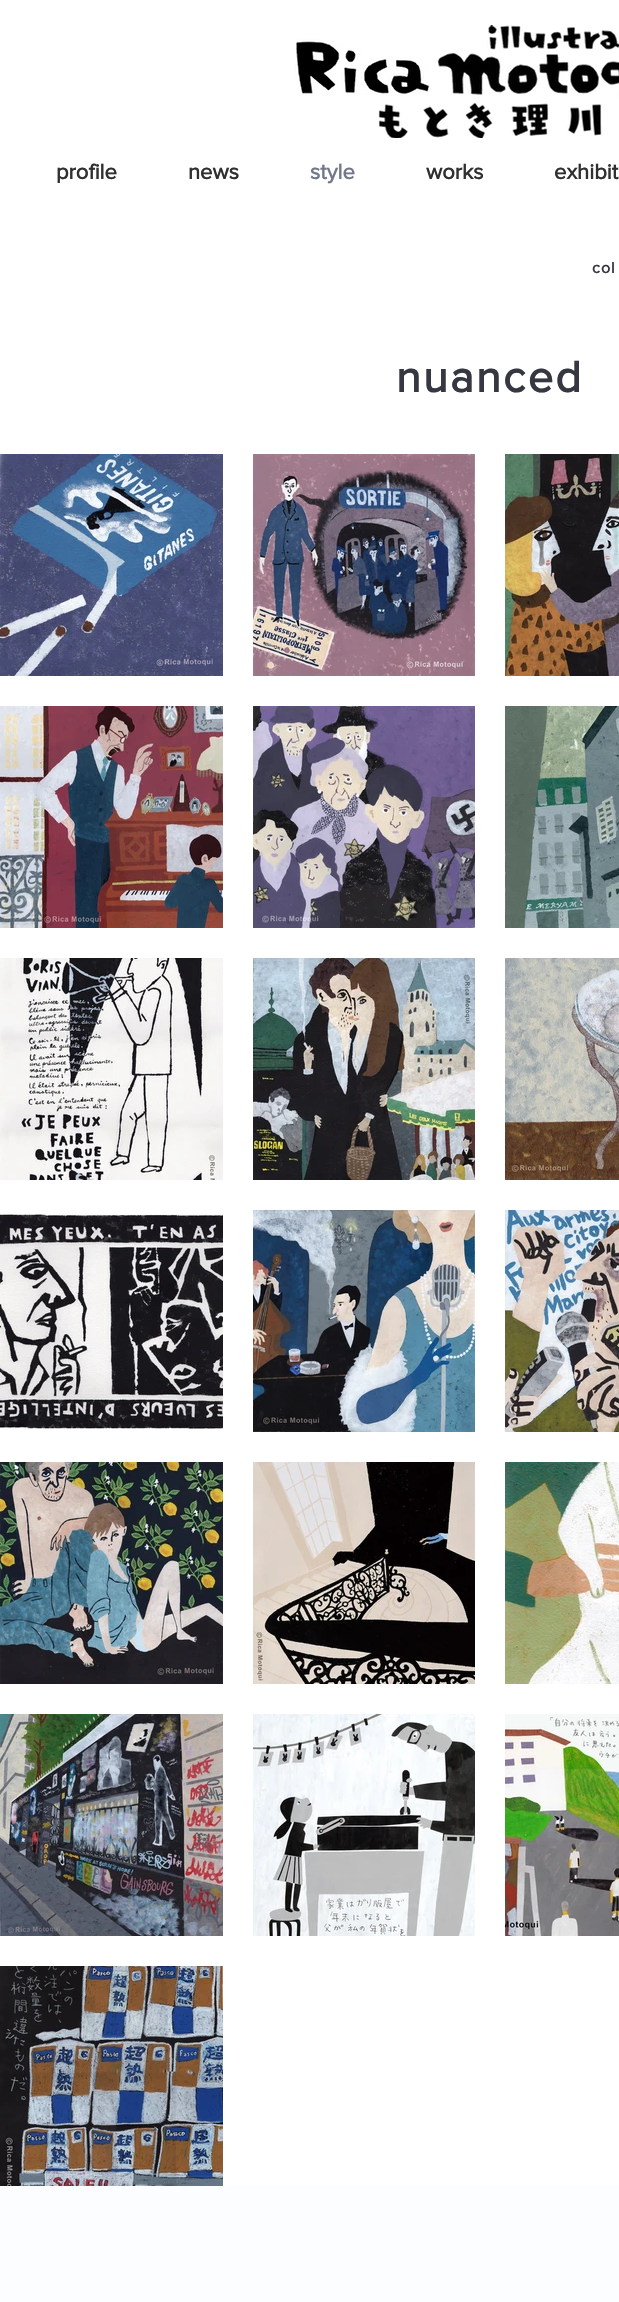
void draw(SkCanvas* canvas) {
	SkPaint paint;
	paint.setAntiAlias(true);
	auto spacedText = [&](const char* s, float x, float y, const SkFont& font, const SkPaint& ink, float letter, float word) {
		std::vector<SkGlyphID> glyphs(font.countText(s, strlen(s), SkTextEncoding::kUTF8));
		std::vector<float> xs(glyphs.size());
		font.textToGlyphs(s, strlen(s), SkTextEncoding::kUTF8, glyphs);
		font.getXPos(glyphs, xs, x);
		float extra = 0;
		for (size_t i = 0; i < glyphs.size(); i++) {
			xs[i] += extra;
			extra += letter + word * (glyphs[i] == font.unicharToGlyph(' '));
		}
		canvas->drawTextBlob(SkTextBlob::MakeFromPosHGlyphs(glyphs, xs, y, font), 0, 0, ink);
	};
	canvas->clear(0xffffffff);
	canvas->drawImageRect(SkImages::DeferredFromEncodedData(SkData::MakeFromFileName("img1.png")), SkRect::MakeXYWH(295, 25, 324, 113), SkSamplingOptions());
	SkFont f1(fontMgr->matchFamilyStyle("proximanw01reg", SkFontStyle::Bold()), 22);
	f1.setSubpixel(true);
	paint.setColor(0xff303031);
	canvas->drawString("profile", 56, 179, f1, paint);
	canvas->drawString("news", 188, 179, f1, paint);
	paint.setColor(0xff72788a);
	canvas->drawString("style", 310, 179, f1, paint);
	paint.setColor(0xff303031);
	canvas->drawString("works", 426, 179, f1, paint);
	canvas->drawString("exhibit", 554, 179, f1, paint);
	SkFont f2(fontMgr->matchFamilyStyle("proximanw01reg", SkFontStyle::Bold()), 16);
	f2.setSubpixel(true);
	paint.setColor(0xff353840);
	spacedText("col", 592, 273, f2, paint, 1, 0);
	SkFont f3(fontMgr->matchFamilyStyle("proximanw01reg", SkFontStyle::Bold()), 45);
	f3.setSubpixel(true);
	spacedText("nuanced", 396, 392, f3, paint, 2.25, 0);
	canvas->drawImageRect(SkImages::DeferredFromEncodedData(SkData::MakeFromFileName("img2.png")), SkRect::MakeXYWH(0, 454, 223, 222), SkSamplingOptions());
	canvas->drawImageRect(SkImages::DeferredFromEncodedData(SkData::MakeFromFileName("img3.png")), SkRect::MakeXYWH(253, 454, 222, 222), SkSamplingOptions());
	canvas->drawImageRect(SkImages::DeferredFromEncodedData(SkData::MakeFromFileName("img4.png")), SkRect::MakeXYWH(505, 454, 114, 222), SkSamplingOptions());
	canvas->drawImageRect(SkImages::DeferredFromEncodedData(SkData::MakeFromFileName("img5.png")), SkRect::MakeXYWH(0, 706, 223, 222), SkSamplingOptions());
	canvas->drawImageRect(SkImages::DeferredFromEncodedData(SkData::MakeFromFileName("img6.png")), SkRect::MakeXYWH(253, 706, 222, 222), SkSamplingOptions());
	canvas->drawImageRect(SkImages::DeferredFromEncodedData(SkData::MakeFromFileName("img7.png")), SkRect::MakeXYWH(505, 706, 114, 222), SkSamplingOptions());
	canvas->drawImageRect(SkImages::DeferredFromEncodedData(SkData::MakeFromFileName("img8.png")), SkRect::MakeXYWH(0, 958, 223, 222), SkSamplingOptions());
	canvas->drawImageRect(SkImages::DeferredFromEncodedData(SkData::MakeFromFileName("img9.png")), SkRect::MakeXYWH(253, 958, 222, 222), SkSamplingOptions());
	canvas->drawImageRect(SkImages::DeferredFromEncodedData(SkData::MakeFromFileName("img10.png")), SkRect::MakeXYWH(505, 958, 114, 222), SkSamplingOptions());
	canvas->drawImageRect(SkImages::DeferredFromEncodedData(SkData::MakeFromFileName("img11.png")), SkRect::MakeXYWH(0, 1210, 223, 222), SkSamplingOptions());
	canvas->drawImageRect(SkImages::DeferredFromEncodedData(SkData::MakeFromFileName("img12.png")), SkRect::MakeXYWH(253, 1210, 222, 222), SkSamplingOptions());
	canvas->drawImageRect(SkImages::DeferredFromEncodedData(SkData::MakeFromFileName("img13.png")), SkRect::MakeXYWH(505, 1210, 114, 222), SkSamplingOptions());
	canvas->drawImageRect(SkImages::DeferredFromEncodedData(SkData::MakeFromFileName("img14.png")), SkRect::MakeXYWH(0, 1462, 223, 222), SkSamplingOptions());
	canvas->drawImageRect(SkImages::DeferredFromEncodedData(SkData::MakeFromFileName("img15.png")), SkRect::MakeXYWH(253, 1462, 222, 222), SkSamplingOptions());
	canvas->drawImageRect(SkImages::DeferredFromEncodedData(SkData::MakeFromFileName("img16.png")), SkRect::MakeXYWH(505, 1462, 114, 222), SkSamplingOptions());
	canvas->drawImageRect(SkImages::DeferredFromEncodedData(SkData::MakeFromFileName("img17.png")), SkRect::MakeXYWH(0, 1714, 223, 222), SkSamplingOptions());
	canvas->drawImageRect(SkImages::DeferredFromEncodedData(SkData::MakeFromFileName("img18.png")), SkRect::MakeXYWH(253, 1714, 222, 222), SkSamplingOptions());
	canvas->drawImageRect(SkImages::DeferredFromEncodedData(SkData::MakeFromFileName("img19.png")), SkRect::MakeXYWH(505, 1714, 114, 222), SkSamplingOptions());
	canvas->drawImageRect(SkImages::DeferredFromEncodedData(SkData::MakeFromFileName("img20.png")), SkRect::MakeXYWH(0, 1966, 223, 220), SkSamplingOptions());
	paint.setColor(0xfffcfdff);
	canvas->drawRect(SkRect::MakeXYWH(0, 2186, 619, 116), paint);
}
